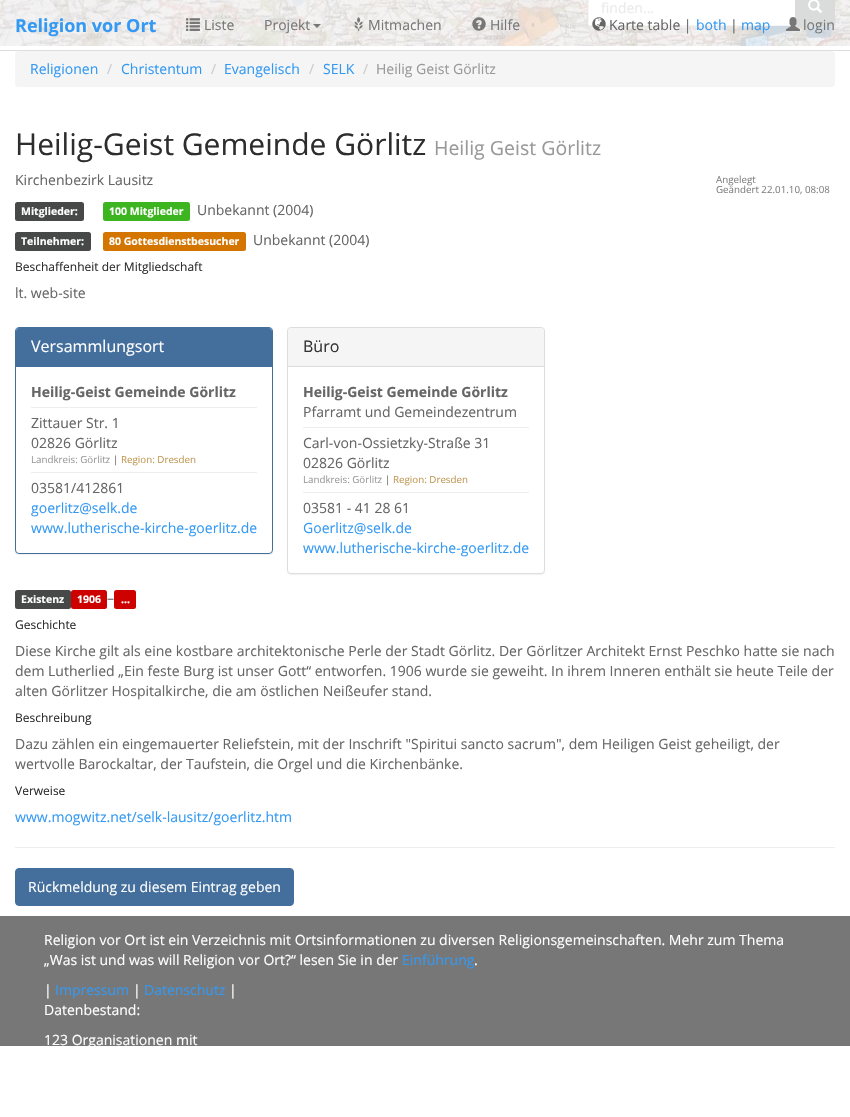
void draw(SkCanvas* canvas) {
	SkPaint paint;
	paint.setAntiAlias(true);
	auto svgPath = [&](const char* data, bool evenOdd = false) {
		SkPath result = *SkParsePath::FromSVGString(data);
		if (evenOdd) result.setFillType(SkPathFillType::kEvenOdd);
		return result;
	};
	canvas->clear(0xffffffff);
	canvas->drawImageRect(SkImages::DeferredFromEncodedData(SkData::MakeFromFileName("img1.png")), SkRect::MakeXYWH(0, 0, 850, 46), SkSamplingOptions());
	paint.setColor(0xffffffff);
	canvas->drawRect(SkRect::MakeXYWH(588.5, -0.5, 207, 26), paint);
	paint.setStroke(true);
	paint.setStrokeWidth(1);
	paint.setColor(0xfff5f5f5);
	canvas->drawRect(SkRect::MakeXYWH(588.5, -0.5, 207, 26), paint);
	SkFont f1(fontMgr->matchFamilyStyle("Open Sans", SkFontStyle::Normal()), 14);
	f1.setSubpixel(true);
	paint.setStroke(false);
	paint.setColor(0xffebebeb);
	canvas->drawString("finden...", 601, 13, f1, paint);
	paint.setColor(0xffdadbdb);
	canvas->drawPath(svgPath("M795.5-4.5H831C833-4.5 834.5-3 834.5-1V22C834.5 24 833 25.5 831 25.5H795.5Z"), paint);
	paint.setStroke(true);
	canvas->drawPath(svgPath("M795.5-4.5H831C833-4.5 834.5-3 834.5-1V22C834.5 24 833 25.5 831 25.5H795.5Z"), paint);
	canvas->drawImageRect(SkImages::DeferredFromEncodedData(SkData::MakeFromFileName("img2.png")), SkRect::MakeXYWH(808, 0, 15, 13), SkSamplingOptions());
	paint.setStroke(false);
	paint.setColor(0xffdddddd);
	canvas->drawRect(SkRect::MakeXYWH(0, 50, 850, 1), paint);
	SkFont f2(fontMgr->matchFamilyStyle("Open Sans", SkFontStyle::Bold()), 18);
	f2.setSubpixel(true);
	paint.setColor(0xff3399f3);
	canvas->drawString("Religion vor Ort", 15, 32, f2, paint);
	canvas->drawImageRect(SkImages::DeferredFromEncodedData(SkData::MakeFromFileName("img3.png")), SkRect::MakeXYWH(186, 18, 14, 13), SkSamplingOptions());
	paint.setColor(0xff777777);
	canvas->drawString("Liste", 204, 30, f1, paint);
	canvas->drawString("Projekt", 264, 30, f1, paint);
	canvas->drawPath(svgPath("M313 24H321L317 28Z"), paint);
	canvas->drawImageRect(SkImages::DeferredFromEncodedData(SkData::MakeFromFileName("img4.png")), SkRect::MakeXYWH(354, 17, 9, 14), SkSamplingOptions());
	canvas->drawString("Mitmachen", 368, 30, f1, paint);
	canvas->drawImageRect(SkImages::DeferredFromEncodedData(SkData::MakeFromFileName("img5.png")), SkRect::MakeXYWH(472, 17, 14, 14), SkSamplingOptions());
	canvas->drawString("Hilfe", 490, 30, f1, paint);
	canvas->drawImageRect(SkImages::DeferredFromEncodedData(SkData::MakeFromFileName("img6.png")), SkRect::MakeXYWH(592, 17, 14, 14), SkSamplingOptions());
	paint.setColor(0xff666666);
	canvas->drawString("Karte table |", 609, 30, f1, paint);
	paint.setColor(0xff3399f3);
	canvas->drawString("both", 696, 30, f1, paint);
	paint.setColor(0xff666666);
	canvas->drawString("|", 730, 30, f1, paint);
	paint.setColor(0xff3399f3);
	canvas->drawString("map", 741, 30, f1, paint);
	canvas->drawImageRect(SkImages::DeferredFromEncodedData(SkData::MakeFromFileName("img7.png")), SkRect::MakeXYWH(786, 17, 14, 14), SkSamplingOptions());
	paint.setColor(0xff777777);
	canvas->drawString("login", 803, 30, f1, paint);
	paint.setColor(0xfff5f5f5);
	canvas->drawRoundRect(SkRect::MakeXYWH(15, 51, 820, 36), 4, 4, paint);
	paint.setColor(0xff3399f3);
	canvas->drawString("Religionen", 30, 74, f1, paint);
	paint.setColor(0xffcccccc);
	canvas->drawString("/", 107, 74, f1, paint);
	paint.setColor(0xff3399f3);
	canvas->drawString("Christentum", 121, 74, f1, paint);
	paint.setColor(0xffcccccc);
	canvas->drawString("/", 211, 74, f1, paint);
	paint.setColor(0xff3399f3);
	canvas->drawString("Evangelisch", 224, 74, f1, paint);
	paint.setColor(0xffcccccc);
	canvas->drawString("/", 309, 74, f1, paint);
	paint.setColor(0xff3399f3);
	canvas->drawString("SELK", 323, 74, f1, paint);
	paint.setColor(0xffcccccc);
	canvas->drawString("/", 363, 74, f1, paint);
	paint.setColor(0xff999999);
	canvas->drawString("Heilig Geist Görlitz", 376, 74, f1, paint);
	SkFont f3(fontMgr->matchFamilyStyle("Open Sans", SkFontStyle::Normal()), 30);
	f3.setSubpixel(true);
	paint.setColor(0xff2d2d2d);
	canvas->drawString("Heilig-Geist Gemeinde Görlitz", 15, 155, f3, paint);
	SkFont f4(fontMgr->matchFamilyStyle("Open Sans", SkFontStyle::Normal()), 19.5);
	f4.setSubpixel(true);
	paint.setColor(0xff999999);
	canvas->drawString("Heilig Geist Görlitz", 434, 155, f4, paint);
	paint.setColor(0xff666666);
	canvas->drawString("Kirchenbezirk Lausitz", 15, 185, f1, paint);
	SkFont f5(fontMgr->matchFamilyStyle("Open Sans", SkFontStyle::Normal()), 9.75);
	f5.setSubpixel(true);
	paint.setColor(0xff808080);
	canvas->drawString("Angelegt", 716, 183, f5, paint);
	canvas->drawString("Geändert 22.01.10, 08:08", 716, 193, f5, paint);
	paint.setColor(0xff474949);
	canvas->drawRoundRect(SkRect::MakeXYWH(15, 202, 69, 19), 2.5, 2.5, paint);
	SkFont f6(fontMgr->matchFamilyStyle("Open Sans", SkFontStyle::Bold()), 10.5);
	f6.setSubpixel(true);
	paint.setColor(0xffffffff);
	canvas->drawString("Mitglieder:", 21, 215, f6, paint);
	paint.setColor(0xff3cb521);
	canvas->drawRoundRect(SkRect::MakeXYWH(103, 202, 87, 19), 2.5, 2.5, paint);
	paint.setColor(0xffffffff);
	canvas->drawString("100 Mitglieder", 109, 215, f6, paint);
	paint.setColor(0xff666666);
	canvas->drawString("Unbekannt (2004)", 197, 215, f1, paint);
	paint.setColor(0xff474949);
	canvas->drawRoundRect(SkRect::MakeXYWH(15, 232, 76, 19), 2.5, 2.5, paint);
	paint.setColor(0xffffffff);
	canvas->drawString("Teilnehmer:", 21, 245, f6, paint);
	paint.setColor(0xffd47500);
	canvas->drawRoundRect(SkRect::MakeXYWH(103, 232, 143, 19), 2.5, 2.5, paint);
	paint.setColor(0xffffffff);
	canvas->drawString("80 Gottesdienstbesucher", 109, 245, f6, paint);
	paint.setColor(0xff666666);
	canvas->drawString("Unbekannt (2004)", 253, 245, f1, paint);
	SkFont f7(fontMgr->matchFamilyStyle("Open Sans", SkFontStyle::Normal()), 12);
	f7.setSubpixel(true);
	paint.setColor(0xff2d2d2d);
	canvas->drawString("Beschaffenheit der Mitgliedschaft", 15, 271, f7, paint);
	paint.setColor(0xff666666);
	canvas->drawString("lt. web-site", 15, 298, f1, paint);
	paint.setColor(0x0d000000);
	paint.setMaskFilter(SkMaskFilter::MakeBlur(kNormal_SkBlurStyle, 0.5));
	canvas->drawRoundRect(SkRect::MakeXYWH(15, 328, 258, 227), 4, 4, paint);
	paint.setMaskFilter(nullptr);
	paint.setColor(0xffffffff);
	canvas->drawRoundRect(SkRect::MakeXYWH(15.5, 327.5, 257, 226), 3.5, 3.5, paint);
	paint.setStroke(true);
	paint.setColor(0xff446e9b);
	canvas->drawRoundRect(SkRect::MakeXYWH(15.5, 327.5, 257, 226), 3.5, 3.5, paint);
	paint.setStroke(false);
	canvas->drawPath(svgPath("M19 328H269C270.5 328 272 329.5 272 331V367H16V331C16 329.5 17.5 328 19 328Z"), paint);
	SkFont f8(fontMgr->matchFamilyStyle("Open Sans", SkFontStyle::Normal()), 16);
	f8.setSubpixel(true);
	paint.setColor(0xffffffff);
	canvas->drawString("Versammlungsort", 31, 352, f8, paint);
	SkFont f9(fontMgr->matchFamilyStyle("Open Sans", SkFontStyle::Bold()), 14);
	f9.setSubpixel(true);
	paint.setColor(0xff666666);
	canvas->drawString("Heilig-Geist Gemeinde Görlitz", 31, 397, f9, paint);
	paint.setColor(0xffeeeeee);
	canvas->drawRect(SkRect::MakeXYWH(31, 407, 226, 1), paint);
	paint.setColor(0xff666666);
	canvas->drawString("Zittauer Str. 1", 31, 428, f1, paint);
	canvas->drawString("02826 Görlitz", 31, 448, f1, paint);
	paint.setColor(0xff999999);
	canvas->drawString("Landkreis: Görlitz", 31, 463, f5, paint);
	paint.setColor(0xff666666);
	canvas->drawString("|", 113, 463, f5, paint);
	paint.setColor(0xffc09853);
	canvas->drawString("Region: Dresden", 121, 463, f5, paint);
	paint.setColor(0xffeeeeee);
	canvas->drawRect(SkRect::MakeXYWH(31, 472, 226, 1), paint);
	paint.setColor(0xff666666);
	canvas->drawString("03581/412861", 31, 493, f1, paint);
	paint.setColor(0xff3399f3);
	canvas->drawString("goerlitz@selk.de", 31, 513, f1, paint);
	canvas->drawString("www.lutherische-kirche-goerlitz.de", 31, 533, f1, paint);
	paint.setColor(0x0d000000);
	paint.setMaskFilter(SkMaskFilter::MakeBlur(kNormal_SkBlurStyle, 0.5));
	canvas->drawRoundRect(SkRect::MakeXYWH(287, 328, 258, 247), 4, 4, paint);
	paint.setMaskFilter(nullptr);
	paint.setColor(0xffffffff);
	canvas->drawRoundRect(SkRect::MakeXYWH(287.5, 327.5, 257, 246), 3.5, 3.5, paint);
	paint.setStroke(true);
	paint.setColor(0xffdddddd);
	canvas->drawRoundRect(SkRect::MakeXYWH(287.5, 327.5, 257, 246), 3.5, 3.5, paint);
	paint.setStroke(false);
	paint.setColor(0xfff5f5f5);
	canvas->drawPath(svgPath("M291 328H541C542.5 328 544 329.5 544 331V367H288V331C288 329.5 289.5 328 291 328Z"), paint);
	paint.setColor(0xffdddddd);
	canvas->drawRect(SkRect::MakeXYWH(288, 366, 256, 1), paint);
	paint.setColor(0xff333333);
	canvas->drawString("Büro", 303, 352, f8, paint);
	paint.setColor(0xff666666);
	canvas->drawString("Heilig-Geist Gemeinde Görlitz", 303, 397, f9, paint);
	canvas->drawString("Pfarramt und Gemeindezentrum", 303, 417, f1, paint);
	paint.setColor(0xffeeeeee);
	canvas->drawRect(SkRect::MakeXYWH(303, 427, 226, 1), paint);
	paint.setColor(0xff666666);
	canvas->drawString("Carl-von-Ossietzky-Straße 31", 303, 448, f1, paint);
	canvas->drawString("02826 Görlitz", 303, 468, f1, paint);
	paint.setColor(0xff999999);
	canvas->drawString("Landkreis: Görlitz", 303, 483, f5, paint);
	paint.setColor(0xff666666);
	canvas->drawString("|", 385, 483, f5, paint);
	paint.setColor(0xffc09853);
	canvas->drawString("Region: Dresden", 393, 483, f5, paint);
	paint.setColor(0xffeeeeee);
	canvas->drawRect(SkRect::MakeXYWH(303, 492, 226, 1), paint);
	paint.setColor(0xff666666);
	canvas->drawString("03581 - 41 28 61", 303, 513, f1, paint);
	paint.setColor(0xff3399f3);
	canvas->drawString("Goerlitz@selk.de", 303, 533, f1, paint);
	canvas->drawString("www.lutherische-kirche-goerlitz.de", 303, 553, f1, paint);
	paint.setColor(0xff474949);
	canvas->drawRoundRect(SkRect::MakeXYWH(15, 590, 56, 19), 2.5, 2.5, paint);
	paint.setColor(0xffffffff);
	canvas->drawString("Existenz", 21, 603, f6, paint);
	paint.setColor(0xffcd0200);
	canvas->drawRoundRect(SkRect::MakeXYWH(71, 590, 36, 19), 2.5, 2.5, paint);
	paint.setColor(0xffffffff);
	canvas->drawString("1906", 77, 603, f6, paint);
	paint.setColor(0xff666666);
	canvas->drawString("–", 107, 603, f1, paint);
	paint.setColor(0xffcd0200);
	canvas->drawRoundRect(SkRect::MakeXYWH(114, 590, 22, 19), 2.5, 2.5, paint);
	paint.setColor(0xffffffff);
	canvas->drawString("...", 121, 603, f6, paint);
	paint.setColor(0xff2d2d2d);
	canvas->drawString("Geschichte", 15, 629, f7, paint);
	paint.setColor(0xff666666);
	canvas->drawString("Diese Kirche gilt als eine kostbare architektonische Perle der Stadt Görlitz. Der Görlitzer Architekt Ernst Peschko hatte sie nach", 15, 656, f1, paint);
	canvas->drawString("dem Lutherlied „Ein feste Burg ist unser Gott“ entworfen. 1906 wurde sie geweiht. In ihrem Inneren enthält sie heute Teile der", 15, 676, f1, paint);
	canvas->drawString("alten Görlitzer Hospitalkirche, die am östlichen Neißeufer stand.", 15, 696, f1, paint);
	paint.setColor(0xff2d2d2d);
	canvas->drawString("Beschreibung", 15, 722, f7, paint);
	paint.setColor(0xff666666);
	canvas->drawString("Dazu zählen ein eingemauerter Reliefstein, mit der Inschrift \"Spiritui sancto sacrum\", dem Heiligen Geist geheiligt, der", 15, 749, f1, paint);
	canvas->drawString("wertvolle Barockaltar, der Taufstein, die Orgel und die Kirchenbänke.", 15, 769, f1, paint);
	paint.setColor(0xff2d2d2d);
	canvas->drawString("Verweise", 15, 795, f7, paint);
	paint.setColor(0xff3399f3);
	canvas->drawString("www.mogwitz.net/selk-lausitz/goerlitz.htm", 15, 822, f1, paint);
	paint.setColor(0xffeeeeee);
	canvas->drawRect(SkRect::MakeXYWH(15, 847, 820, 1), paint);
	paint.setColor(0xff446e9b);
	canvas->drawRoundRect(SkRect::MakeXYWH(15.5, 868.5, 278, 37), 3.5, 3.5, paint);
	paint.setStroke(true);
	canvas->drawRoundRect(SkRect::MakeXYWH(15.5, 868.5, 278, 37), 3.5, 3.5, paint);
	paint.setStroke(false);
	paint.setColor(0xffffffff);
	canvas->drawString("Rückmeldung zu diesem Eintrag geben", 28, 892, f1, paint);
	paint.setColor(0xff777777);
	canvas->drawRect(SkRect::MakeXYWH(0, 916, 850, 130), paint);
	paint.setColor(0xffffffff);
	canvas->drawString("Religion vor Ort ist ein Verzeichnis mit Ortsinformationen zu diversen Religionsgemeinschaften. Mehr zum Thema", 44, 945, f1, paint);
	canvas->drawString("„Was ist und was will Religion vor Ort?“ lesen Sie in der", 44, 965, f1, paint);
	paint.setColor(0xff3399f3);
	canvas->drawString("Einführung", 402, 965, f1, paint);
	paint.setColor(0xffffffff);
	canvas->drawString(".", 474, 965, f1, paint);
	canvas->drawString("|", 44, 995, f1, paint);
	paint.setColor(0xff3399f3);
	canvas->drawString("Impressum", 55, 995, f1, paint);
	paint.setColor(0xffffffff);
	canvas->drawString("|", 133, 995, f1, paint);
	paint.setColor(0xff3399f3);
	canvas->drawString("Datenschutz", 144, 995, f1, paint);
	paint.setColor(0xffffffff);
	canvas->drawString("|", 229, 995, f1, paint);
	canvas->drawString("Datenbestand:", 44, 1015, f1, paint);
	canvas->drawString("123 Organisationen mit", 44, 1045, f1, paint);
}
